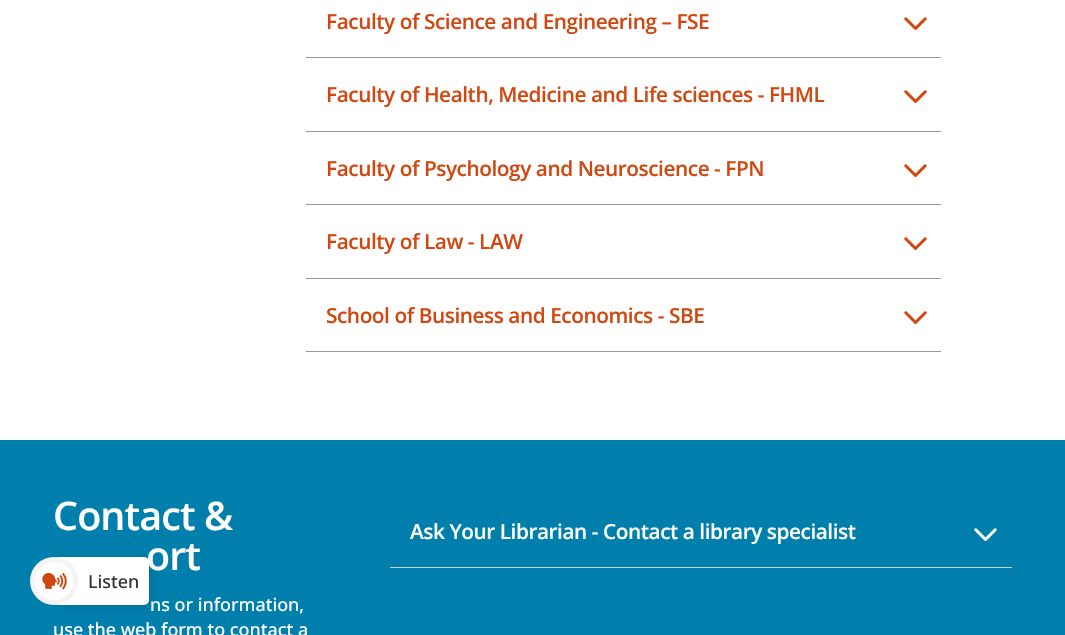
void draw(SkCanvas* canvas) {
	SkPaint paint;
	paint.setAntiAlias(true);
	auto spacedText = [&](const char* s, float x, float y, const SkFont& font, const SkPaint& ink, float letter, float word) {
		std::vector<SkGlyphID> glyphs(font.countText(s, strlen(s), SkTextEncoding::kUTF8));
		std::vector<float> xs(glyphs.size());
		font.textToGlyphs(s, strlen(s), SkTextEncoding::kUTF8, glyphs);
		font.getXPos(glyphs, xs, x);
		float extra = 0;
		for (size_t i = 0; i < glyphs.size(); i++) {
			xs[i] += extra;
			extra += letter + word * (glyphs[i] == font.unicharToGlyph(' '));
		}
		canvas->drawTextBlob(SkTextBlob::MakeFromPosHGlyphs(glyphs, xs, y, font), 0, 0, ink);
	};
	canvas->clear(0xffffffff);
	paint.setColor(0xff999999);
	canvas->drawRect(SkRect::MakeXYWH(306, 57, 635, 1), paint);
	SkFont f1(fontMgr->matchFamilyStyle("Open Sans", SkFontStyle(600, SkFontStyle::kNormal_Width, SkFontStyle::kUpright_Slant)), 20.8);
	f1.setSubpixel(true);
	paint.setColor(0xffd2460f);
	spacedText("Faculty of Science and Engineering – FSE", 326, 29, f1, paint, -0.45, 0);
	canvas->drawImageRect(SkImages::DeferredFromEncodedData(SkData::MakeFromFileName("img1.png")), SkRect::MakeXYWH(904, 17, 23, 13), SkSamplingOptions());
	paint.setColor(0xff999999);
	canvas->drawRect(SkRect::MakeXYWH(306, 131, 635, 1), paint);
	paint.setColor(0xffd2460f);
	spacedText("Faculty of Health, Medicine and Life sciences - FHML", 326, 102, f1, paint, -0.45, 0);
	canvas->drawImageRect(SkImages::DeferredFromEncodedData(SkData::MakeFromFileName("img1.png")), SkRect::MakeXYWH(904, 90, 23, 13), SkSamplingOptions());
	paint.setColor(0xff999999);
	canvas->drawRect(SkRect::MakeXYWH(306, 204, 635, 1), paint);
	paint.setColor(0xffd2460f);
	spacedText("Faculty of Psychology and Neuroscience - FPN", 326, 176, f1, paint, -0.45, 0);
	canvas->drawImageRect(SkImages::DeferredFromEncodedData(SkData::MakeFromFileName("img1.png")), SkRect::MakeXYWH(904, 164, 23, 13), SkSamplingOptions());
	paint.setColor(0xff999999);
	canvas->drawRect(SkRect::MakeXYWH(306, 278, 635, 1), paint);
	paint.setColor(0xffd2460f);
	spacedText("Faculty of Law - LAW", 326, 249, f1, paint, -0.45, 0);
	canvas->drawImageRect(SkImages::DeferredFromEncodedData(SkData::MakeFromFileName("img1.png")), SkRect::MakeXYWH(904, 237, 23, 13), SkSamplingOptions());
	paint.setColor(0xff999999);
	canvas->drawRect(SkRect::MakeXYWH(306, 351, 635, 1), paint);
	paint.setColor(0xffd2460f);
	spacedText("School of Business and Economics - SBE", 326, 323, f1, paint, -0.45, 0);
	canvas->drawImageRect(SkImages::DeferredFromEncodedData(SkData::MakeFromFileName("img1.png")), SkRect::MakeXYWH(904, 311, 23, 13), SkSamplingOptions());
	paint.setColor(0xff007fad);
	canvas->drawRect(SkRect::MakeXYWH(0, 440, 1065, 195), paint);
	SkFont f2(fontMgr->matchFamilyStyle("Open Sans", SkFontStyle(600, SkFontStyle::kNormal_Width, SkFontStyle::kUpright_Slant)), 39.5);
	f2.setSubpixel(true);
	paint.setColor(0xffffffff);
	spacedText("Contact &", 53, 530, f2, paint, -0.9, 0);
	spacedText("ort", 146, 570, f2, paint, -0.9, 0);
	SkFont f3(fontMgr->matchFamilyStyle("Open Sans", SkFontStyle(500, SkFontStyle::kNormal_Width, SkFontStyle::kUpright_Slant)), 18);
	f3.setSubpixel(true);
	canvas->drawString("ns or information,", 150, 611, f3, paint);
	canvas->drawString("use the web form to contact a", 53, 636, f3, paint);
	paint.setColor(0xffcccccc);
	canvas->drawRect(SkRect::MakeXYWH(390, 567, 622, 1), paint);
	paint.setColor(0xffffffff);
	spacedText("Ask Your Librarian - Contact a library specialist", 410, 539, f1, paint, -0.45, 0);
	canvas->drawImageRect(SkImages::DeferredFromEncodedData(SkData::MakeFromFileName("img2.png")), SkRect::MakeXYWH(974, 528, 23, 13), SkSamplingOptions());
	paint.setColor(0x1a000000);
	paint.setMaskFilter(SkMaskFilter::MakeBlur(kNormal_SkBlurStyle, 6));
	canvas->drawRoundRect(SkRect::MakeXYWH(58, 559, 95, 48), 5, 5, paint);
	paint.setMaskFilter(nullptr);
	paint.setColor(0xffffffff);
	canvas->drawRoundRect(SkRect::MakeXYWH(54, 557, 95, 48), 5, 5, paint);
	paint.setColor(0xfff4f4f4);
	canvas->drawCircle(54, 581, 24, paint);
	canvas->drawImageRect(SkImages::DeferredFromEncodedData(SkData::MakeFromFileName("img3.png")), SkRect::MakeXYWH(35, 562, 38, 38), SkSamplingOptions());
	paint.setColor(0xff333333);
	canvas->drawString("Listen", 88, 588, f3, paint);
}
